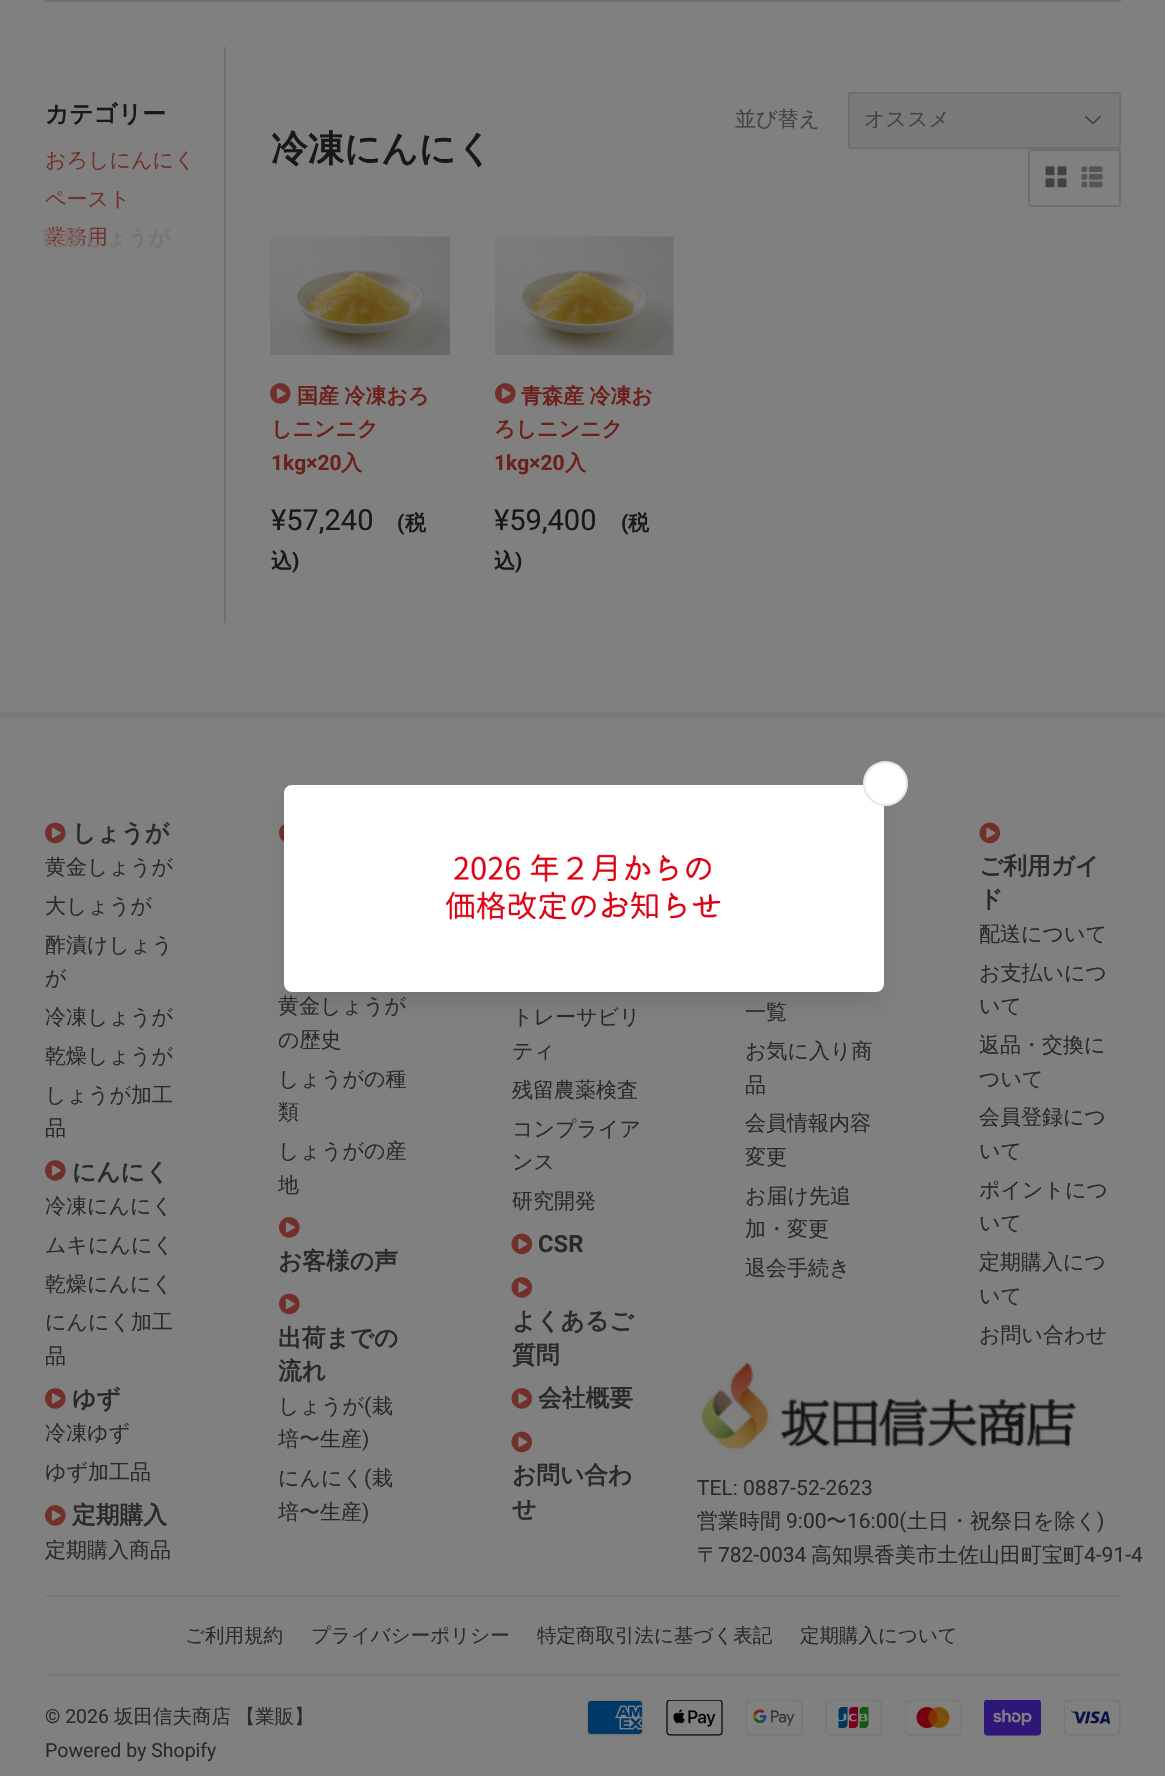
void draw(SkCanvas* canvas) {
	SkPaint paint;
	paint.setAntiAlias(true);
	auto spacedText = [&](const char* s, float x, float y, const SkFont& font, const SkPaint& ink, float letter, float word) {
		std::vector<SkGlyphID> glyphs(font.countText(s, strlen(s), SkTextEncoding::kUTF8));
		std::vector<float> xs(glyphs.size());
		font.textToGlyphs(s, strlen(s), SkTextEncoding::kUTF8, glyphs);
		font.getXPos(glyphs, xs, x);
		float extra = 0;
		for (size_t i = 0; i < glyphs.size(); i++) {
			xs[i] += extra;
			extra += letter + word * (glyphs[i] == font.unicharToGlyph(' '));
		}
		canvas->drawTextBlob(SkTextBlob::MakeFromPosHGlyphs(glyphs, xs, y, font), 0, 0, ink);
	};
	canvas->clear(0xff808080);
	paint.setColor(0xff6f6f6f);
	canvas->drawRect(SkRect::MakeXYWH(45, 0, 1076, 2), paint);
	SkFont f1(fontMgr->matchFamilyStyle("WenQuanYi Zen Hei", SkFontStyle::Bold()), 23.75);
	f1.setSubpixel(true);
	paint.setColor(0xff181818);
	canvas->drawString("カテゴリー", 45, 122, f1, paint);
	SkFont f2(fontMgr->matchFamilyStyle("WenQuanYi Zen Hei", SkFontStyle(500, SkFontStyle::kNormal_Width, SkFontStyle::kUpright_Slant)), 21);
	f2.setSubpixel(true);
	paint.setColor(0xff72312a);
	canvas->drawString("おろしにんにく", 45, 167, f2, paint);
	canvas->drawString("ペースト", 45, 206, f2, paint);
	canvas->drawString("業務用", 45, 244, f2, paint);
	paint.setColor(0xff6f6f6f);
	canvas->drawRect(SkRect::MakeXYWH(224, 47, 2, 576), paint);
	paint.setColor(0xff434343);
	canvas->drawString("並び替え", 735, 126, f2, paint);
	paint.setColor(0xff7a7a7a);
	canvas->drawRoundRect(SkRect::MakeXYWH(848, 92, 273, 57), 3, 3, paint);
	canvas->drawImageRect(SkImages::DeferredFromEncodedData(SkData::MakeFromFileName("img1.png")), SkRect::MakeXYWH(1085, 115, 16, 10), SkSamplingOptions());
	paint.setStroke(true);
	paint.setStrokeWidth(2);
	paint.setColor(0xff6f6f6f);
	canvas->drawRoundRect(SkRect::MakeXYWH(849, 93, 271, 55), 2, 2, paint);
	paint.setStroke(false);
	paint.setColor(0xff434343);
	canvas->drawString("オススメ", 864, 126, f2, paint);
	paint.setStroke(true);
	paint.setColor(0xff6f6f6f);
	canvas->drawRoundRect(SkRect::MakeXYWH(1029, 150, 91, 56), 2, 2, paint);
	canvas->drawImageRect(SkImages::DeferredFromEncodedData(SkData::MakeFromFileName("img2.png")), SkRect::MakeXYWH(1045, 166, 22, 22), SkSamplingOptions());
	canvas->drawImageRect(SkImages::DeferredFromEncodedData(SkData::MakeFromFileName("img3.png")), SkRect::MakeXYWH(1081, 166, 22, 22), SkSamplingOptions());
	SkFont f3(fontMgr->matchFamilyStyle("WenQuanYi Zen Hei", SkFontStyle::Bold()), 36.5);
	f3.setSubpixel(true);
	paint.setStroke(false);
	paint.setColor(0xff181818);
	canvas->drawString("冷凍にんにく", 271, 161, f3, paint);
	canvas->drawImageRect(SkImages::DeferredFromEncodedData(SkData::MakeFromFileName("img4.png")), SkRect::MakeXYWH(270, 236, 180, 119), SkSamplingOptions());
	canvas->drawImageRect(SkImages::DeferredFromEncodedData(SkData::MakeFromFileName("img5.png")), SkRect::MakeXYWH(270, 383, 21, 21), SkSamplingOptions());
	SkFont f4(fontMgr->matchFamilyStyle("WenQuanYi Zen Hei", SkFontStyle::Bold()), 21);
	f4.setSubpixel(true);
	paint.setColor(0xff6c201a);
	spacedText("国産 冷凍おろ", 297, 403, f4, paint, 0, -1);
	canvas->drawString("しニンニク", 271, 436, f4, paint);
	SkFont f5(fontMgr->matchFamilyStyle("Roboto", SkFontStyle::Bold()), 21);
	f5.setSubpixel(true);
	canvas->drawString("1kg×20", 271, 470, f5, paint);
	canvas->drawString("入", 341, 470, f4, paint);
	SkFont f6(fontMgr->matchFamilyStyle("Roboto", SkFontStyle::Normal()), 29);
	f6.setSubpixel(true);
	paint.setColor(0xff181818);
	canvas->drawString("¥57,240", 271, 530, f6, paint);
	canvas->drawString("(", 397, 530, f5, paint);
	canvas->drawString("税", 405, 530, f4, paint);
	canvas->drawString("込", 271, 568, f4, paint);
	canvas->drawString(")", 292, 568, f5, paint);
	canvas->drawImageRect(SkImages::DeferredFromEncodedData(SkData::MakeFromFileName("img6.png")), SkRect::MakeXYWH(495, 236, 179, 119), SkSamplingOptions());
	canvas->drawImageRect(SkImages::DeferredFromEncodedData(SkData::MakeFromFileName("img5.png")), SkRect::MakeXYWH(495, 383, 21, 21), SkSamplingOptions());
	paint.setColor(0xff6c201a);
	spacedText("青森産 冷凍お", 521, 403, f4, paint, 0, -1);
	canvas->drawString("ろしニンニク", 494, 436, f4, paint);
	canvas->drawString("1kg×20", 494, 470, f5, paint);
	canvas->drawString("入", 565, 470, f4, paint);
	paint.setColor(0xff181818);
	canvas->drawString("¥59,400", 494, 530, f6, paint);
	canvas->drawString("(", 621, 530, f5, paint);
	canvas->drawString("税", 628, 530, f4, paint);
	canvas->drawString("込", 494, 568, f4, paint);
	canvas->drawString(")", 515, 568, f5, paint);
	paint.setColor(0xff7d716f);
	canvas->drawString("乾燥しょうが", 42, 245, f4, paint);
	canvas->drawImageRect(SkImages::DeferredFromEncodedData(SkData::MakeFromFileName("img9.png")), SkRect::MakeXYWH(279, 824, 5, 18), SkSamplingOptions());
	paint.setColor(0x1a000000);
	paint.setMaskFilter(SkMaskFilter::MakeBlur(kNormal_SkBlurStyle, 11));
	canvas->drawRoundRect(SkRect::MakeXYWH(288, 804, 591, 198), 3, 3, paint);
	paint.setMaskFilter(nullptr);
	canvas->save();
	canvas->clipRect(SkRect::MakeXYWH(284, 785, 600, 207));
	paint.setColor(0x1f000000);
	paint.setMaskFilter(SkMaskFilter::MakeBlur(kNormal_SkBlurStyle, 15));
	canvas->drawRoundRect(SkRect::MakeXYWH(288, 789, 591, 198), 3, 3, paint);
	paint.setMaskFilter(nullptr);
	canvas->restore();
	paint.setColor(0xffffffff);
	canvas->drawRoundRect(SkRect::MakeXYWH(284, 785, 600, 207), 8, 8, paint);
	canvas->drawImageRect(SkImages::DeferredFromEncodedData(SkData::MakeFromFileName("img7.png")), SkRect::MakeXYWH(445, 853, 276, 67), SkSamplingOptions());
	canvas->drawCircle(885.5, 783.5, 21.5, paint);
	paint.setStroke(true);
	paint.setColor(0xffe2e8f0);
	canvas->drawCircle(885.5, 783.5, 21.5, paint);
	paint.setStroke(false);
	paint.setColor(0xff797979);
	canvas->drawRect(SkRect::MakeXYWH(0, 713, 1165, 5), paint);
	canvas->drawImageRect(SkImages::DeferredFromEncodedData(SkData::MakeFromFileName("img8.png")), SkRect::MakeXYWH(45, 822, 21, 22), SkSamplingOptions());
	paint.setColor(0xff2a2a2a);
	canvas->drawString("しょうが", 72, 841, f1, paint);
	canvas->drawString("黄金しょうが", 45, 874, f2, paint);
	canvas->drawString("大しょうが", 45, 913, f2, paint);
	canvas->drawString("酢漬けしょう", 45, 952, f2, paint);
	canvas->drawString("が", 45, 985, f2, paint);
	canvas->drawString("冷凍しょうが", 45, 1024, f2, paint);
	canvas->drawString("乾燥しょうが", 45, 1063, f2, paint);
	canvas->drawString("しょうが加工", 45, 1102, f2, paint);
	canvas->drawString("品", 45, 1135, f2, paint);
	canvas->drawImageRect(SkImages::DeferredFromEncodedData(SkData::MakeFromFileName("img5.png")), SkRect::MakeXYWH(45, 1160, 21, 21), SkSamplingOptions());
	canvas->drawString("にんにく", 72, 1180, f1, paint);
	canvas->drawString("冷凍にんにく", 45, 1213, f2, paint);
	canvas->drawString("ムキにんにく", 45, 1252, f2, paint);
	canvas->drawString("乾燥にんにく", 45, 1291, f2, paint);
	canvas->drawString("にんにく加工", 45, 1329, f2, paint);
	canvas->drawString("品", 45, 1363, f2, paint);
	canvas->drawImageRect(SkImages::DeferredFromEncodedData(SkData::MakeFromFileName("img5.png")), SkRect::MakeXYWH(45, 1388, 21, 21), SkSamplingOptions());
	canvas->drawString("ゆず", 72, 1407, f1, paint);
	canvas->drawString("冷凍ゆず", 45, 1440, f2, paint);
	canvas->drawString("ゆず加工品", 45, 1479, f2, paint);
	canvas->drawImageRect(SkImages::DeferredFromEncodedData(SkData::MakeFromFileName("img5.png")), SkRect::MakeXYWH(45, 1505, 21, 21), SkSamplingOptions());
	canvas->drawString("定期購入", 72, 1523, f1, paint);
	canvas->drawString("定期購入商品", 45, 1557, f2, paint);
	canvas->drawString("黄金しょうが", 278, 1013, f2, paint);
	canvas->drawString("の歴史", 278, 1047, f2, paint);
	canvas->drawString("しょうがの種", 278, 1086, f2, paint);
	canvas->drawString("類", 278, 1119, f2, paint);
	canvas->drawString("しょうがの産", 278, 1158, f2, paint);
	canvas->drawString("地", 278, 1192, f2, paint);
	canvas->drawImageRect(SkImages::DeferredFromEncodedData(SkData::MakeFromFileName("img5.png")), SkRect::MakeXYWH(279, 1217, 21, 21), SkSamplingOptions());
	canvas->drawString("お客様の声", 278, 1269, f1, paint);
	canvas->drawImageRect(SkImages::DeferredFromEncodedData(SkData::MakeFromFileName("img8.png")), SkRect::MakeXYWH(279, 1293, 21, 22), SkSamplingOptions());
	canvas->drawString("出荷までの", 278, 1346, f1, paint);
	canvas->drawString("流れ", 278, 1379, f1, paint);
	canvas->drawString("しょうが", 278, 1413, f2, paint);
	SkFont f7(fontMgr->matchFamilyStyle("Roboto", SkFontStyle::Normal()), 21);
	f7.setSubpixel(true);
	canvas->drawString("(", 364, 1413, f7, paint);
	canvas->drawString("栽", 372, 1413, f2, paint);
	canvas->drawString("培〜生産", 278, 1446, f2, paint);
	canvas->drawString(")", 362, 1446, f7, paint);
	canvas->drawString("にんにく", 278, 1485, f2, paint);
	canvas->drawString("(", 364, 1485, f7, paint);
	canvas->drawString("栽", 372, 1485, f2, paint);
	canvas->drawString("培〜生産", 278, 1519, f2, paint);
	canvas->drawString(")", 362, 1519, f7, paint);
	canvas->drawString("トレーサビリ", 512, 1024, f2, paint);
	canvas->drawString("ティ", 512, 1058, f2, paint);
	canvas->drawString("残留農薬検査", 512, 1097, f2, paint);
	canvas->drawString("コンプライア", 512, 1136, f2, paint);
	canvas->drawString("ンス", 512, 1169, f2, paint);
	canvas->drawString("研究開発", 512, 1208, f2, paint);
	canvas->drawImageRect(SkImages::DeferredFromEncodedData(SkData::MakeFromFileName("img10.png")), SkRect::MakeXYWH(511, 1233, 22, 22), SkSamplingOptions());
	SkFont f8(fontMgr->matchFamilyStyle("Roboto", SkFontStyle::Bold()), 23.75);
	f8.setSubpixel(true);
	canvas->drawString("CSR", 538, 1252, f8, paint);
	canvas->drawImageRect(SkImages::DeferredFromEncodedData(SkData::MakeFromFileName("img11.png")), SkRect::MakeXYWH(511, 1277, 22, 21), SkSamplingOptions());
	canvas->drawString("よくあるご", 512, 1329, f1, paint);
	canvas->drawString("質問", 512, 1363, f1, paint);
	canvas->drawImageRect(SkImages::DeferredFromEncodedData(SkData::MakeFromFileName("img11.png")), SkRect::MakeXYWH(511, 1388, 22, 21), SkSamplingOptions());
	canvas->drawString("会社概要", 538, 1406, f1, paint);
	canvas->drawImageRect(SkImages::DeferredFromEncodedData(SkData::MakeFromFileName("img10.png")), SkRect::MakeXYWH(511, 1431, 22, 22), SkSamplingOptions());
	canvas->drawString("お問い合わ", 512, 1483, f1, paint);
	canvas->drawString("せ", 512, 1517, f1, paint);
	canvas->drawString("一覧", 745, 1019, f2, paint);
	canvas->drawString("お気に入り商", 745, 1058, f2, paint);
	canvas->drawString("品", 745, 1092, f2, paint);
	canvas->drawString("会員情報内容", 745, 1130, f2, paint);
	canvas->drawString("変更", 745, 1164, f2, paint);
	canvas->drawString("お届け先追", 745, 1203, f2, paint);
	canvas->drawString("加・変更", 745, 1236, f2, paint);
	canvas->drawString("退会手続き", 745, 1275, f2, paint);
	canvas->drawImageRect(SkImages::DeferredFromEncodedData(SkData::MakeFromFileName("img10.png")), SkRect::MakeXYWH(979, 822, 22, 22), SkSamplingOptions());
	canvas->drawString("ご利用ガイ", 979, 874, f1, paint);
	canvas->drawString("ド", 979, 907, f1, paint);
	canvas->drawString("配送について", 979, 941, f2, paint);
	canvas->drawString("お支払いにつ", 979, 980, f2, paint);
	canvas->drawString("いて", 979, 1013, f2, paint);
	canvas->drawString("返品・交換に", 979, 1052, f2, paint);
	canvas->drawString("ついて", 979, 1086, f2, paint);
	canvas->drawString("会員登録につ", 979, 1124, f2, paint);
	canvas->drawString("いて", 979, 1158, f2, paint);
	canvas->drawString("ポイントにつ", 979, 1197, f2, paint);
	canvas->drawString("いて", 979, 1230, f2, paint);
	canvas->drawString("定期購入につ", 979, 1269, f2, paint);
	canvas->drawString("いて", 979, 1303, f2, paint);
	canvas->drawString("お問い合わせ", 979, 1342, f2, paint);
	canvas->drawImageRect(SkImages::DeferredFromEncodedData(SkData::MakeFromFileName("img12.png")), SkRect::MakeXYWH(700, 1357, 376, 96), SkSamplingOptions());
	canvas->drawString("TEL: 0887-52-2623", 697, 1495, f7, paint);
	canvas->drawString("営業時間", 697, 1528, f2, paint);
	canvas->drawString("9:00", 786, 1528, f7, paint);
	canvas->drawString("〜", 826, 1528, f2, paint);
	canvas->drawString("16:00(", 847, 1528, f7, paint);
	canvas->drawString("土日・祝祭日を除く", 907, 1528, f2, paint);
	canvas->drawString(")", 1097, 1528, f7, paint);
	canvas->drawString("〒", 697, 1562, f2, paint);
	canvas->drawString("782-0034", 718, 1562, f7, paint);
	canvas->drawString("高知県香美市土佐山田町宝町", 811, 1562, f2, paint);
	canvas->drawString("4-91-4", 1084, 1562, f7, paint);
	paint.setColor(0xff797979);
	canvas->drawRect(SkRect::MakeXYWH(45, 1595, 1076, 2), paint);
	SkFont f9(fontMgr->matchFamilyStyle("WenQuanYi Zen Hei", SkFontStyle(500, SkFontStyle::kNormal_Width, SkFontStyle::kUpright_Slant)), 19.5);
	f9.setSubpixel(true);
	paint.setColor(0xff2a2a2a);
	canvas->drawString("ご利用規約", 185, 1642, f9, paint);
	canvas->drawString("プライバシーポリシー", 311, 1642, f9, paint);
	canvas->drawString("特定商取引法に基づく表記", 537, 1642, f9, paint);
	canvas->drawString("定期購入について", 800, 1642, f9, paint);
	paint.setColor(0xff797979);
	canvas->drawRect(SkRect::MakeXYWH(45, 1674, 1076, 2), paint);
	SkFont f10(fontMgr->matchFamilyStyle("Roboto", SkFontStyle::Normal()), 19.5);
	f10.setSubpixel(true);
	paint.setColor(0xff2a2a2a);
	canvas->drawString("© 2026", 45, 1723, f10, paint);
	spacedText("坂田信夫商店 【業販】", 114, 1723, f9, paint, 0, -1);
	canvas->drawString("Powered by Shopify", 45, 1757, f10, paint);
	canvas->drawImageRect(SkImages::DeferredFromEncodedData(SkData::MakeFromFileName("img13.png")), SkRect::MakeXYWH(587, 1700, 57, 36), SkSamplingOptions());
	canvas->drawImageRect(SkImages::DeferredFromEncodedData(SkData::MakeFromFileName("img14.png")), SkRect::MakeXYWH(666, 1700, 57, 36), SkSamplingOptions());
	canvas->drawImageRect(SkImages::DeferredFromEncodedData(SkData::MakeFromFileName("img15.png")), SkRect::MakeXYWH(746, 1700, 57, 36), SkSamplingOptions());
	canvas->drawImageRect(SkImages::DeferredFromEncodedData(SkData::MakeFromFileName("img16.png")), SkRect::MakeXYWH(825, 1700, 57, 36), SkSamplingOptions());
	canvas->drawImageRect(SkImages::DeferredFromEncodedData(SkData::MakeFromFileName("img17.png")), SkRect::MakeXYWH(905, 1700, 57, 36), SkSamplingOptions());
	canvas->drawImageRect(SkImages::DeferredFromEncodedData(SkData::MakeFromFileName("img18.png")), SkRect::MakeXYWH(984, 1700, 57, 36), SkSamplingOptions());
	canvas->drawImageRect(SkImages::DeferredFromEncodedData(SkData::MakeFromFileName("img19.png")), SkRect::MakeXYWH(1064, 1700, 57, 36), SkSamplingOptions());
}
